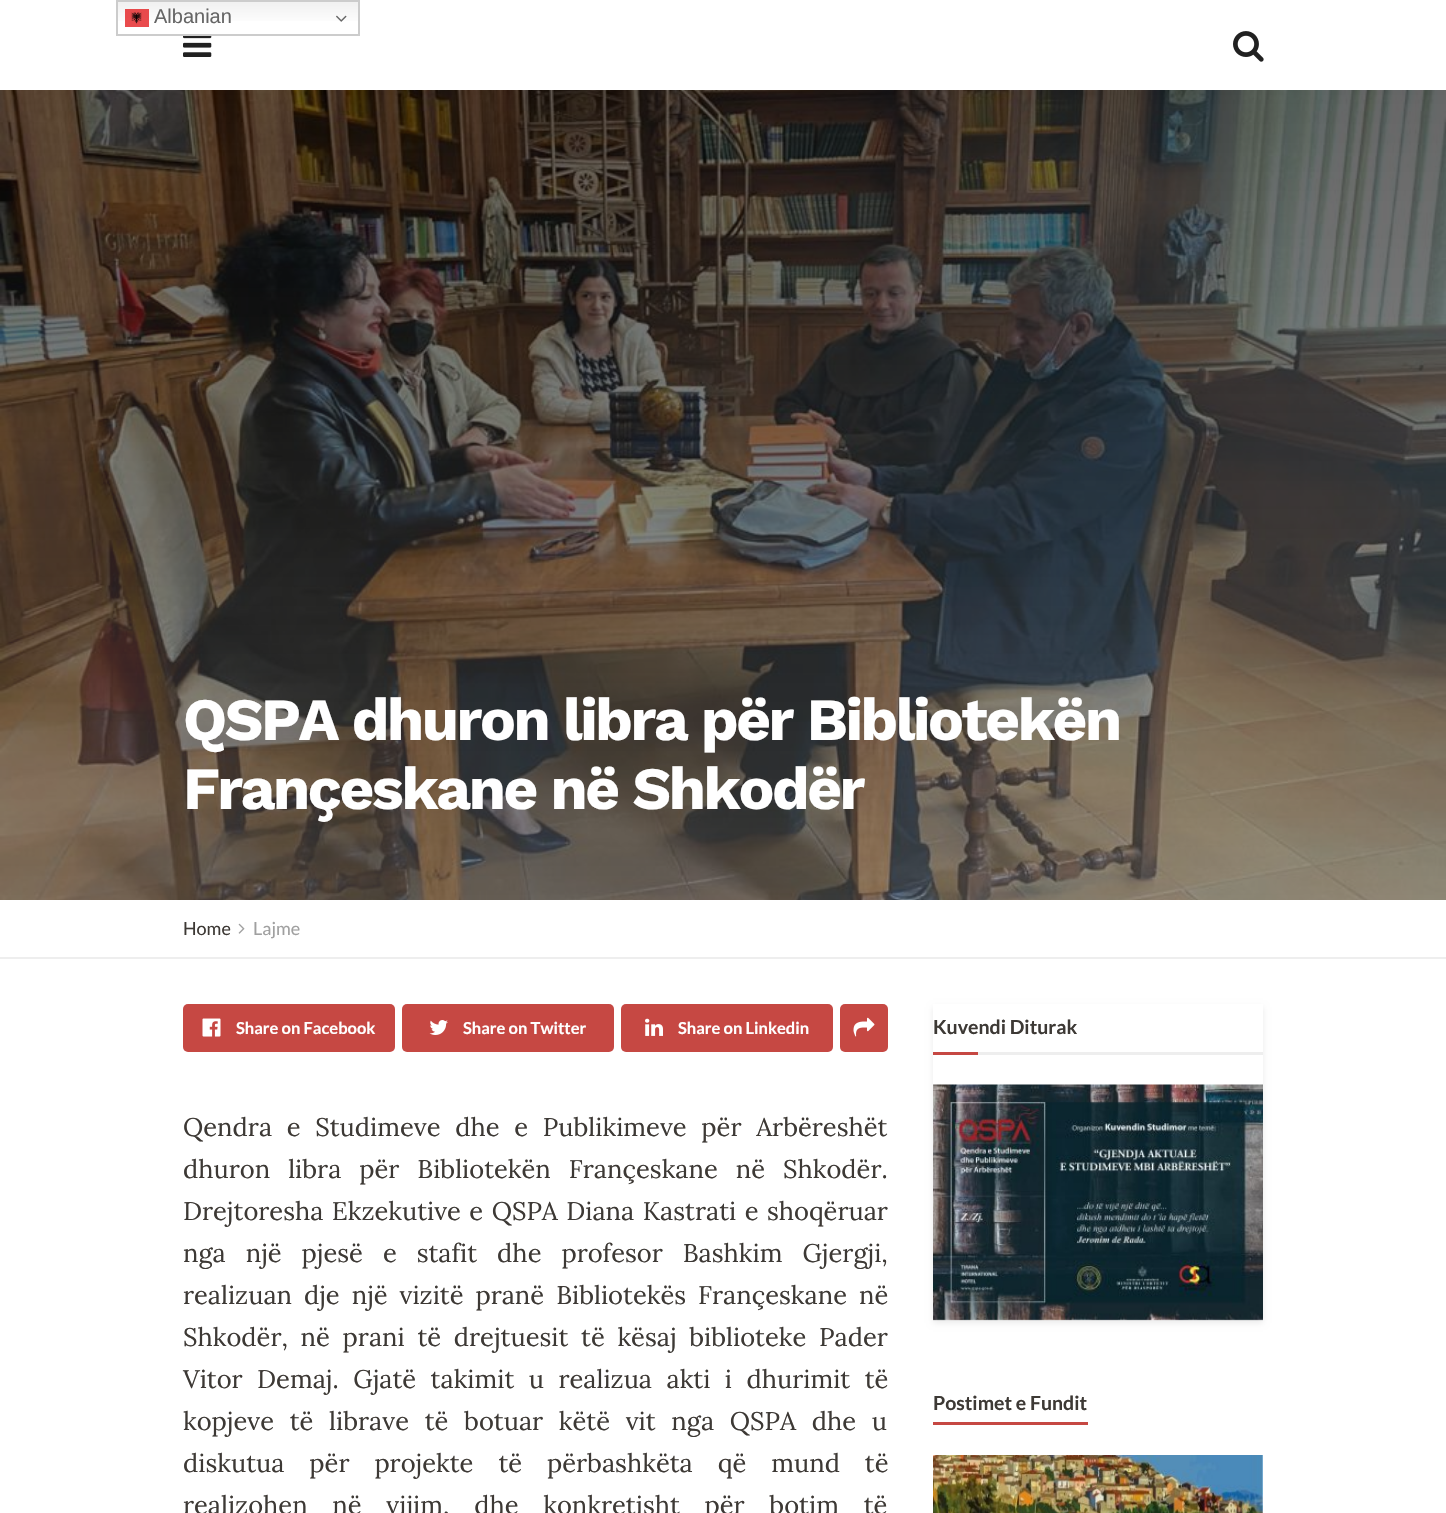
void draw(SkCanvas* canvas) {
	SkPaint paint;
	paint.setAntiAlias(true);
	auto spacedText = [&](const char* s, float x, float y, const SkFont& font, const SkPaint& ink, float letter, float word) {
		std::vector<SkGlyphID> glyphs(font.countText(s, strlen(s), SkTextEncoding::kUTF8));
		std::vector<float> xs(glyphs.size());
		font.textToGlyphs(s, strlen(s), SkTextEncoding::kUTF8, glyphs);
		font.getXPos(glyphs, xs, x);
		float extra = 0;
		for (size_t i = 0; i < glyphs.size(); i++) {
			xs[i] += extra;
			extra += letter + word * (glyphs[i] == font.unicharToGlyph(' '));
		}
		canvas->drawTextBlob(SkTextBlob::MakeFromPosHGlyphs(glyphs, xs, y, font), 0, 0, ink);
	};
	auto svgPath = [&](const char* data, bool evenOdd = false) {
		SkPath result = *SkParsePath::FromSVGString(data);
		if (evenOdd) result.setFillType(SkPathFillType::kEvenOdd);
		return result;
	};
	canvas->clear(0xffffffff);
	{
		const SkColor colors[] = {0xffefefef, 0xffffffff};
		const float stops[] = {0, 0.7};
		const SkPoint ends[] = {{238, 0}, {238, 36}};
		paint.setShader(SkGradientShader::MakeLinear(ends, colors, stops, 2, SkTileMode::kClamp));
		paint.setAlpha(255);
	}
	canvas->drawRect(SkRect::MakeXYWH(118, 2, 240, 19), paint);
	paint.setStroke(true);
	paint.setStrokeWidth(2);
	paint.setShader(nullptr);
	paint.setColor(0xffcccccc);
	canvas->drawRect(SkRect::MakeXYWH(117, 1, 242, 34), paint);
	canvas->drawImageRect(SkImages::DeferredFromEncodedData(SkData::MakeFromFileName("img1.png")), SkRect::MakeXYWH(125, 9, 24, 18), SkSamplingOptions());
	SkFont f1(fontMgr->matchFamilyStyle("Liberation Sans", SkFontStyle::Normal()), 20);
	f1.setSubpixel(true);
	paint.setStroke(false);
	paint.setColor(0xff666666);
	canvas->drawString("Albanian", 154, 23, f1, paint);
	canvas->drawImageRect(SkImages::DeferredFromEncodedData(SkData::MakeFromFileName("img2.png")), SkRect::MakeXYWH(336, 15, 11, 7), SkSamplingOptions());
	canvas->drawImageRect(SkImages::DeferredFromEncodedData(SkData::MakeFromFileName("img3.png")), SkRect::MakeXYWH(183, 36, 29, 21), SkSamplingOptions());
	canvas->drawImageRect(SkImages::DeferredFromEncodedData(SkData::MakeFromFileName("img4.png")), SkRect::MakeXYWH(1233, 31, 31, 31), SkSamplingOptions());
	{
		const SkColor colors[] = {0xff000000, 0xff545454};
		const float stops[] = {0, 1};
		const SkPoint ends[] = {{723, 90}, {723, 900}};
		paint.setShader(SkGradientShader::MakeLinear(ends, colors, stops, 2, SkTileMode::kClamp));
		paint.setAlpha(255);
	}
	canvas->drawRect(SkRect::MakeXYWH(0, 90, 1446, 810), paint);
	canvas->drawImageRect(SkImages::DeferredFromEncodedData(SkData::MakeFromFileName("img5.png")), SkRect::MakeXYWH(0, 90, 1446, 810), SkSamplingOptions());
	SkFont f2(fontMgr->matchFamilyStyle("Work Sans", SkFontStyle::Bold()), 60);
	f2.setSubpixel(true);
	paint.setShader(nullptr);
	paint.setColor(0xffffffff);
	spacedText("QSPA dhuron libra për Bibliotekën", 183, 740, f2, paint, -2.4, 0);
	spacedText("Françeskane në Shkodër", 183, 809, f2, paint, -2.4, 0);
	paint.setColor(0xffeeeeee);
	canvas->drawRect(SkRect::MakeXYWH(0, 957, 1446, 2), paint);
	SkFont f3(fontMgr->matchFamilyStyle("Lato", SkFontStyle::Normal()), 18);
	f3.setSubpixel(true);
	paint.setColor(0xff3d3935);
	canvas->drawString("Home", 183, 935, f3, paint);
	canvas->drawImageRect(SkImages::DeferredFromEncodedData(SkData::MakeFromFileName("img6.png")), SkRect::MakeXYWH(238, 923, 7, 11), SkSamplingOptions());
	paint.setColor(0xffa0a0a0);
	canvas->drawString("Lajme", 253, 935, f3, paint);
	paint.setColor(0xffc64843);
	canvas->drawRoundRect(SkRect::MakeXYWH(183, 1004, 212, 48), 5, 5, paint);
	canvas->drawImageRect(SkImages::DeferredFromEncodedData(SkData::MakeFromFileName("img7.png")), SkRect::MakeXYWH(202, 1018, 19, 19), SkSamplingOptions());
	SkFont f4(fontMgr->matchFamilyStyle("Lato", SkFontStyle::Bold()), 16.5);
	f4.setSubpixel(true);
	paint.setColor(0xffffffff);
	canvas->drawString("Share on Facebook", 236, 1034, f4, paint);
	paint.setColor(0xffc64843);
	canvas->drawRoundRect(SkRect::MakeXYWH(402, 1004, 212, 48), 5, 5, paint);
	canvas->drawImageRect(SkImages::DeferredFromEncodedData(SkData::MakeFromFileName("img8.png")), SkRect::MakeXYWH(429, 1020, 19, 15), SkSamplingOptions());
	paint.setColor(0xffffffff);
	canvas->drawString("Share on Twitter", 463, 1034, f4, paint);
	paint.setColor(0xffc64843);
	canvas->drawRoundRect(SkRect::MakeXYWH(621, 1004, 212, 48), 5, 5, paint);
	canvas->drawImageRect(SkImages::DeferredFromEncodedData(SkData::MakeFromFileName("img9.png")), SkRect::MakeXYWH(645, 1018, 18, 18), SkSamplingOptions());
	paint.setColor(0xffffffff);
	canvas->drawString("Share on Linkedin", 678, 1034, f4, paint);
	paint.setColor(0xffc64843);
	canvas->drawRoundRect(SkRect::MakeXYWH(840, 1004, 48, 48), 5, 5, paint);
	canvas->drawImageRect(SkImages::DeferredFromEncodedData(SkData::MakeFromFileName("img10.png")), SkRect::MakeXYWH(853, 1017, 22, 20), SkSamplingOptions());
	SkFont f5(fontMgr->matchFamilyStyle("Lora", SkFontStyle::Normal()), 25.5);
	f5.setSubpixel(true);
	paint.setColor(0xff3d3935);
	spacedText("Qendra e Studimeve dhe e Publikimeve për Arbëreshët", 183, 1136, f5, paint, 0, 8);
	spacedText("dhuron libra për Bibliotekën Françeskane në Shkodër.", 183, 1178, f5, paint, 0, 11.25);
	spacedText("Drejtoresha Ekzekutive e QSPA Diana Kastrati e shoqëruar", 183, 1220, f5, paint, 0, 1.75);
	spacedText("nga një pjesë e stafit dhe profesor Bashkim Gjergji,", 183, 1262, f5, paint, 0, 13.25);
	spacedText("realizuan dje një vizitë pranë Bibliotekës Françeskane në", 183, 1304, f5, paint, 0, 5.25);
	spacedText("Shkodër, në prani të drejtuesit të kësaj biblioteke Pader", 183, 1346, f5, paint, 0, 6);
	spacedText("Vitor Demaj. Gjatë takimit u realizua akti i dhurimit të", 183, 1388, f5, paint, 0, 7.75);
	spacedText("kopjeve të librave të botuar këtë vit nga QSPA dhe u", 183, 1430, f5, paint, 0, 9);
	spacedText("diskutua për projekte të përbashkëta që mund të", 183, 1472, f5, paint, 0, 18.25);
	spacedText("realizohen në vijim, dhe konkretisht për botim të", 183, 1514, f5, paint, 0, 18);
	canvas->save();
	canvas->clipPath(svgPath("M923 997H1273V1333H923ZM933 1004H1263V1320H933Z", true), true);
	paint.setColor(0x14000000);
	paint.setMaskFilter(SkMaskFilter::MakeBlur(kNormal_SkBlurStyle, 3));
	canvas->drawRect(SkRect::MakeXYWH(933, 1007, 330, 316), paint);
	paint.setMaskFilter(nullptr);
	canvas->restore();
	paint.setColor(0xffeeeeee);
	canvas->drawRect(SkRect::MakeXYWH(978, 1052, 285, 3), paint);
	SkFont f6(fontMgr->matchFamilyStyle("Lato", SkFontStyle::Bold()), 19.5);
	f6.setSubpixel(true);
	paint.setColor(0xff3d3935);
	canvas->drawString("Kuvendi Diturak", 933, 1034, f6, paint);
	paint.setColor(0xffc64843);
	canvas->drawRect(SkRect::MakeXYWH(933, 1052, 45, 3), paint);
	canvas->drawImageRect(SkImages::DeferredFromEncodedData(SkData::MakeFromFileName("img11.png")), SkRect::MakeXYWH(933, 1084, 330, 237), SkSamplingOptions());
	canvas->drawRect(SkRect::MakeXYWH(933, 1422, 155, 3), paint);
	paint.setColor(0xff3d3935);
	canvas->drawString("Postimet e Fundit", 933, 1410, f6, paint);
	canvas->drawImageRect(SkImages::DeferredFromEncodedData(SkData::MakeFromFileName("img12.png")), SkRect::MakeXYWH(933, 1455, 330, 58), SkSamplingOptions());
}
